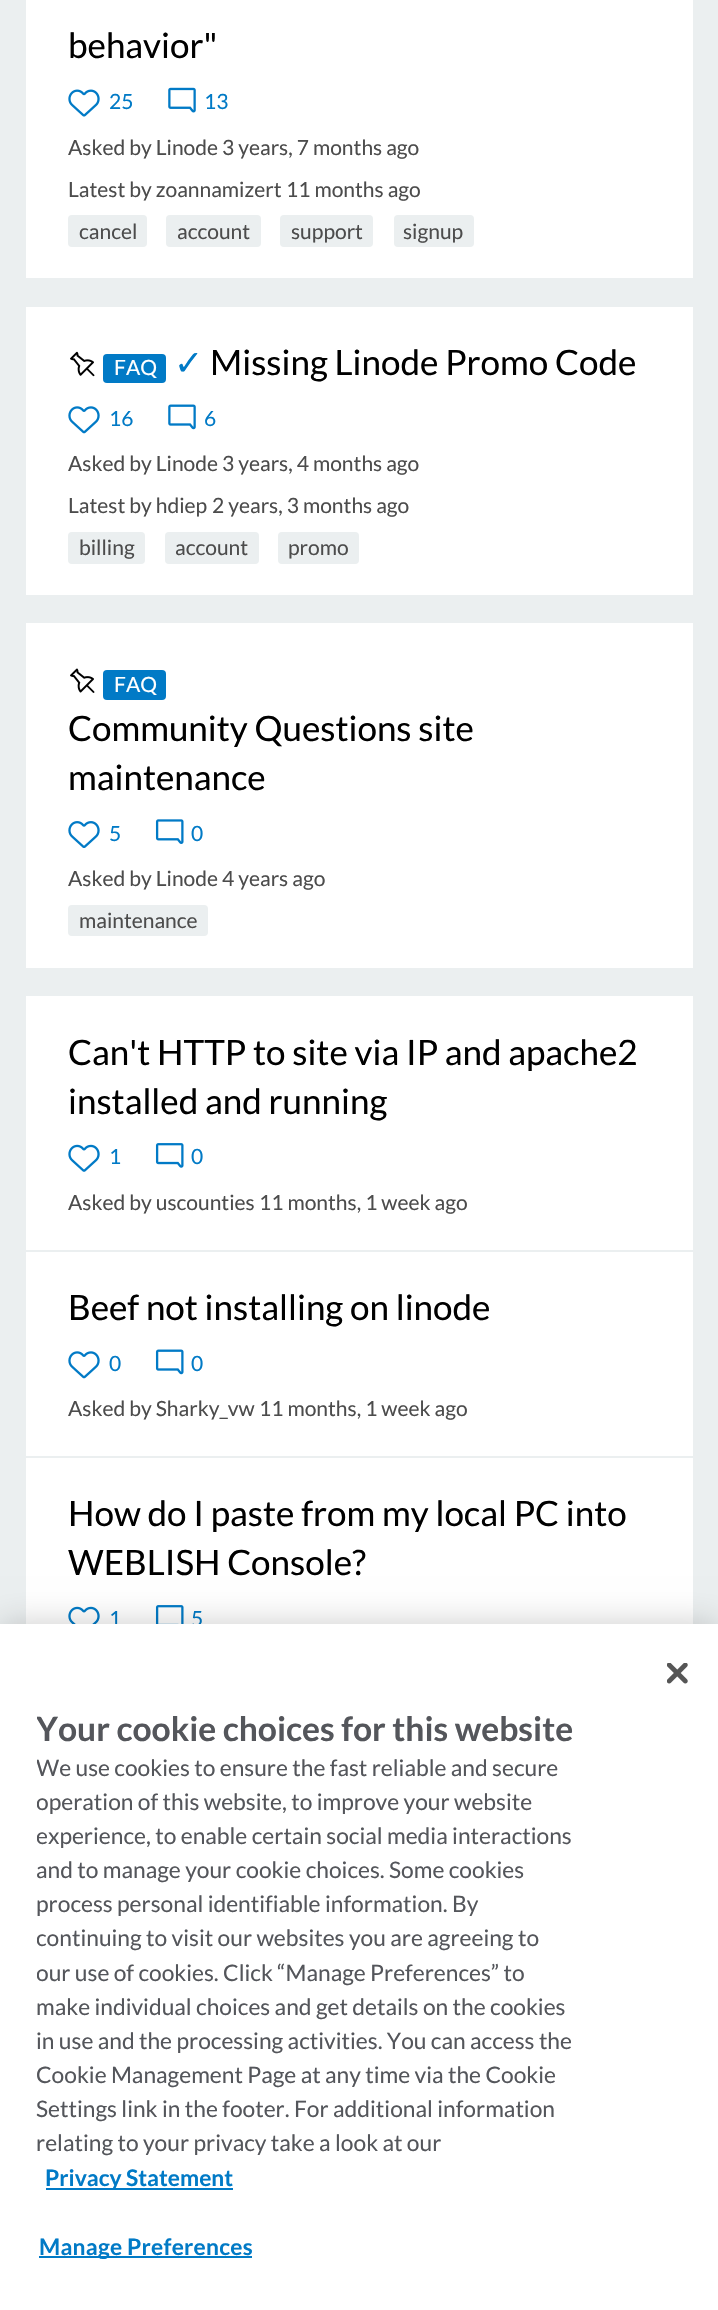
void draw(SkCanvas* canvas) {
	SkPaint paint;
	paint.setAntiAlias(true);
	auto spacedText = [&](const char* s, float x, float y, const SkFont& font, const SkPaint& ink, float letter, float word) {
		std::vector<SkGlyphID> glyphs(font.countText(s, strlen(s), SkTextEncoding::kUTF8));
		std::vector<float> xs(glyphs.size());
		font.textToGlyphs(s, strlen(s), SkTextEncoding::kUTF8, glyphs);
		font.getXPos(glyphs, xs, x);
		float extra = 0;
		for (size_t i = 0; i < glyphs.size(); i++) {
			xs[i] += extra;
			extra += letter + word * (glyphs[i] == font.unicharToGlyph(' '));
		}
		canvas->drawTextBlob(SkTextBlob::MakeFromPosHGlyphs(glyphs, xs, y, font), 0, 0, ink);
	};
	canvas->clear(0xffebeff0);
	paint.setColor(0xffffffff);
	canvas->drawRect(SkRect::MakeXYWH(26, 0, 667, 278), paint);
	SkFont f1(fontMgr->matchFamilyStyle("Lato", SkFontStyle::Normal()), 35);
	f1.setSubpixel(true);
	paint.setColor(0xff000000);
	canvas->drawString("behavior\"", 68, 58, f1, paint);
	canvas->drawImageRect(SkImages::DeferredFromEncodedData(SkData::MakeFromFileName("img1.png")), SkRect::MakeXYWH(68, 89, 32, 28), SkSamplingOptions());
	SkFont f2(fontMgr->matchFamilyStyle("Lato", SkFontStyle::Normal()), 21);
	f2.setSubpixel(true);
	paint.setColor(0xff017ac6);
	canvas->drawString("25", 109, 109, f2, paint);
	canvas->drawImageRect(SkImages::DeferredFromEncodedData(SkData::MakeFromFileName("img2.png")), SkRect::MakeXYWH(168, 87, 28, 26), SkSamplingOptions());
	canvas->drawString("13", 204, 109, f2, paint);
	paint.setColor(0xff4c4c4c);
	canvas->drawString("Asked by Linode", 68, 155, f2, paint);
	canvas->drawString("3 years, 7 months ago", 222, 155, f2, paint);
	canvas->drawString("Latest by zoannamizert", 68, 197, f2, paint);
	canvas->drawString("11 months ago", 286, 197, f2, paint);
	paint.setColor(0xffebeff0);
	canvas->drawRoundRect(SkRect::MakeXYWH(68, 215, 79, 32), 4, 4, paint);
	paint.setColor(0xff4c4c4c);
	canvas->drawString("cancel", 79, 239, f2, paint);
	paint.setColor(0xffebeff0);
	canvas->drawRoundRect(SkRect::MakeXYWH(166, 215, 95, 32), 4, 4, paint);
	paint.setColor(0xff4c4c4c);
	canvas->drawString("account", 177, 239, f2, paint);
	paint.setColor(0xffebeff0);
	canvas->drawRoundRect(SkRect::MakeXYWH(280, 215, 93, 32), 4, 4, paint);
	paint.setColor(0xff4c4c4c);
	canvas->drawString("support", 291, 239, f2, paint);
	paint.setColor(0xffebeff0);
	canvas->drawRoundRect(SkRect::MakeXYWH(394, 215, 80, 32), 4, 4, paint);
	paint.setColor(0xff4c4c4c);
	canvas->drawString("signup", 403, 239, f2, paint);
	paint.setColor(0xffffffff);
	canvas->drawRect(SkRect::MakeXYWH(26, 307, 667, 288), paint);
	canvas->drawImageRect(SkImages::DeferredFromEncodedData(SkData::MakeFromFileName("img3.png")), SkRect::MakeXYWH(70, 351, 25, 26), SkSamplingOptions());
	paint.setColor(0xff017ac6);
	canvas->drawRoundRect(SkRect::MakeXYWH(103, 354, 63, 29), 4, 4, paint);
	paint.setColor(0xffffffff);
	canvas->drawString("FAQ", 114, 375, f2, paint);
	SkFont f3(fontMgr->matchFamilyStyle("DejaVu Sans", SkFontStyle::Normal()), 35);
	f3.setSubpixel(true);
	paint.setColor(0xff017ac6);
	canvas->drawString("✓", 174, 375, f3, paint);
	paint.setColor(0xff000000);
	canvas->drawString("Missing Linode Promo Code", 210, 375, f1, paint);
	canvas->drawImageRect(SkImages::DeferredFromEncodedData(SkData::MakeFromFileName("img4.png")), SkRect::MakeXYWH(68, 406, 32, 28), SkSamplingOptions());
	paint.setColor(0xff017ac6);
	canvas->drawString("16", 109, 426, f2, paint);
	canvas->drawImageRect(SkImages::DeferredFromEncodedData(SkData::MakeFromFileName("img5.png")), SkRect::MakeXYWH(168, 404, 28, 26), SkSamplingOptions());
	canvas->drawString("6", 204, 426, f2, paint);
	paint.setColor(0xff4c4c4c);
	canvas->drawString("Asked by Linode", 68, 471, f2, paint);
	canvas->drawString("3 years, 4 months ago", 222, 471, f2, paint);
	canvas->drawString("Latest by hdiep", 68, 513, f2, paint);
	canvas->drawString("2 years, 3 months ago", 212, 513, f2, paint);
	paint.setColor(0xffebeff0);
	canvas->drawRoundRect(SkRect::MakeXYWH(68, 532, 77, 32), 4, 4, paint);
	paint.setColor(0xff4c4c4c);
	canvas->drawString("billing", 79, 555, f2, paint);
	paint.setColor(0xffebeff0);
	canvas->drawRoundRect(SkRect::MakeXYWH(165, 532, 94, 32), 4, 4, paint);
	paint.setColor(0xff4c4c4c);
	canvas->drawString("account", 175, 555, f2, paint);
	paint.setColor(0xffebeff0);
	canvas->drawRoundRect(SkRect::MakeXYWH(278, 532, 81, 32), 4, 4, paint);
	paint.setColor(0xff4c4c4c);
	canvas->drawString("promo", 288, 555, f2, paint);
	paint.setColor(0xffffffff);
	canvas->drawRect(SkRect::MakeXYWH(26, 623, 667, 345), paint);
	canvas->drawImageRect(SkImages::DeferredFromEncodedData(SkData::MakeFromFileName("img6.png")), SkRect::MakeXYWH(70, 668, 25, 25), SkSamplingOptions());
	paint.setColor(0xff017ac6);
	canvas->drawRoundRect(SkRect::MakeXYWH(103, 670, 63, 30), 4, 4, paint);
	paint.setColor(0xffffffff);
	canvas->drawString("FAQ", 114, 692, f2, paint);
	paint.setColor(0xff000000);
	canvas->drawString("Community Questions site", 68, 741, f1, paint);
	canvas->drawString("maintenance", 68, 790, f1, paint);
	canvas->drawImageRect(SkImages::DeferredFromEncodedData(SkData::MakeFromFileName("img7.png")), SkRect::MakeXYWH(68, 821, 32, 27), SkSamplingOptions());
	paint.setColor(0xff017ac6);
	canvas->drawString("5", 109, 841, f2, paint);
	canvas->drawImageRect(SkImages::DeferredFromEncodedData(SkData::MakeFromFileName("img8.png")), SkRect::MakeXYWH(155, 819, 29, 25), SkSamplingOptions());
	canvas->drawString("0", 191, 841, f2, paint);
	paint.setColor(0xff4c4c4c);
	canvas->drawString("Asked by Linode", 68, 886, f2, paint);
	canvas->drawString("4 years ago", 222, 886, f2, paint);
	paint.setColor(0xffebeff0);
	canvas->drawRoundRect(SkRect::MakeXYWH(68, 905, 140, 31), 4, 4, paint);
	paint.setColor(0xff4c4c4c);
	canvas->drawString("maintenance", 79, 928, f2, paint);
	paint.setColor(0xffffffff);
	canvas->drawRect(SkRect::MakeXYWH(26, 996, 667, 254), paint);
	paint.setColor(0xff000000);
	canvas->drawString("Can't HTTP to site via IP and apache2", 68, 1065, f1, paint);
	canvas->drawString("installed and running", 68, 1114, f1, paint);
	canvas->drawImageRect(SkImages::DeferredFromEncodedData(SkData::MakeFromFileName("img9.png")), SkRect::MakeXYWH(68, 1144, 32, 28), SkSamplingOptions());
	paint.setColor(0xff017ac6);
	canvas->drawString("1", 109, 1164, f2, paint);
	canvas->drawImageRect(SkImages::DeferredFromEncodedData(SkData::MakeFromFileName("img10.png")), SkRect::MakeXYWH(155, 1143, 29, 25), SkSamplingOptions());
	canvas->drawString("0", 191, 1164, f2, paint);
	paint.setColor(0xff4c4c4c);
	canvas->drawString("Asked by uscounties", 68, 1210, f2, paint);
	canvas->drawString("11 months, 1 week ago", 259, 1210, f2, paint);
	paint.setColor(0xffffffff);
	canvas->drawRect(SkRect::MakeXYWH(26, 1252, 667, 204), paint);
	paint.setColor(0xff000000);
	canvas->drawString("Beef not installing on linode", 68, 1320, f1, paint);
	canvas->drawImageRect(SkImages::DeferredFromEncodedData(SkData::MakeFromFileName("img4.png")), SkRect::MakeXYWH(68, 1351, 32, 28), SkSamplingOptions());
	paint.setColor(0xff017ac6);
	canvas->drawString("0", 109, 1371, f2, paint);
	canvas->drawImageRect(SkImages::DeferredFromEncodedData(SkData::MakeFromFileName("img11.png")), SkRect::MakeXYWH(155, 1349, 29, 26), SkSamplingOptions());
	canvas->drawString("0", 191, 1371, f2, paint);
	paint.setColor(0xff4c4c4c);
	canvas->drawString("Asked by Sharky_vw", 68, 1416, f2, paint);
	canvas->drawString("11 months, 1 week ago", 259, 1416, f2, paint);
	paint.setColor(0xffffffff);
	canvas->drawRect(SkRect::MakeXYWH(26, 1458, 667, 166), paint);
	paint.setColor(0xff000000);
	canvas->drawString("How do I paste from my local PC into", 68, 1526, f1, paint);
	canvas->drawString("WEBLISH Console?", 68, 1575, f1, paint);
	canvas->drawImageRect(SkImages::DeferredFromEncodedData(SkData::MakeFromFileName("img12.png")), SkRect::MakeXYWH(68, 1606, 32, 18), SkSamplingOptions());
	paint.setColor(0xff017ac6);
	canvas->drawString("1", 109, 1626, f2, paint);
	canvas->drawImageRect(SkImages::DeferredFromEncodedData(SkData::MakeFromFileName("img13.png")), SkRect::MakeXYWH(155, 1605, 29, 19), SkSamplingOptions());
	canvas->drawString("5", 191, 1626, f2, paint);
	paint.setColor(0x33000000);
	paint.setMaskFilter(SkMaskFilter::MakeBlur(kNormal_SkBlurStyle, 16));
	canvas->drawRect(SkRect::MakeXYWH(0, 1624, 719, 686), paint);
	paint.setMaskFilter(nullptr);
	paint.setColor(0xffffffff);
	canvas->drawRect(SkRect::MakeXYWH(0, 1624, 718, 686), paint);
	canvas->drawImageRect(SkImages::DeferredFromEncodedData(SkData::MakeFromFileName("img14.png")), SkRect::MakeXYWH(667, 1663, 21, 21), SkSamplingOptions());
	canvas->save();
	canvas->clipRect(SkRect::MakeXYWH(37, 1708, 537, 487));
	SkFont f4(fontMgr->matchFamilyStyle("Lato", SkFontStyle::Bold()), 33.6);
	f4.setSubpixel(true);
	paint.setColor(0xff54565b);
	canvas->drawString("Your cookie choices for this website", 36, 1741, f4, paint);
	SkFont f5(fontMgr->matchFamilyStyle("Lato", SkFontStyle::Normal()), 22.75);
	f5.setSubpixel(true);
	canvas->drawString("We use cookies to ensure the fast reliable and secure", 36, 1776, f5, paint);
	canvas->drawString("operation of this website, to improve your website", 36, 1810, f5, paint);
	canvas->drawString("experience, to enable certain social media interactions", 36, 1844, f5, paint);
	canvas->restore();
	canvas->drawString("and to manage your cookie choices. Some cookies", 36, 1878, f5, paint);
	canvas->drawString("process personal identifiable information. By", 36, 1912, f5, paint);
	canvas->save();
	canvas->clipRect(SkRect::MakeXYWH(37, 1708, 537, 487));
	canvas->drawString("continuing to visit our websites you are agreeing to", 36, 1946, f5, paint);
	canvas->drawString("our use of cookies. Click “Manage Preferences” to", 36, 1981, f5, paint);
	canvas->restore();
	canvas->drawString("make individual choices and get details on the cookies", 36, 2015, f5, paint);
	canvas->drawString("in use and the processing activities. You can access the", 36, 2049, f5, paint);
	canvas->drawString("Cookie Management Page at any time via the Cookie", 36, 2083, f5, paint);
	canvas->drawString("Settings link in the footer. For additional information", 36, 2117, f5, paint);
	canvas->drawString("relating to your privacy take a look at our", 36, 2151, f5, paint);
	paint.setColor(0xff017ac6);
	canvas->drawRect(SkRect::MakeXYWH(46, 2188, 187, 2), paint);
	SkFont f6(fontMgr->matchFamilyStyle("Lato", SkFontStyle::Bold()), 22.75);
	f6.setSubpixel(true);
	canvas->drawString("Privacy Statement", 45, 2186, f6, paint);
	canvas->drawRect(SkRect::MakeXYWH(39, 2256, 213, 2), paint);
	spacedText("Manage Preferences", 39, 2255, f6, paint, 0.25, 0);
}
